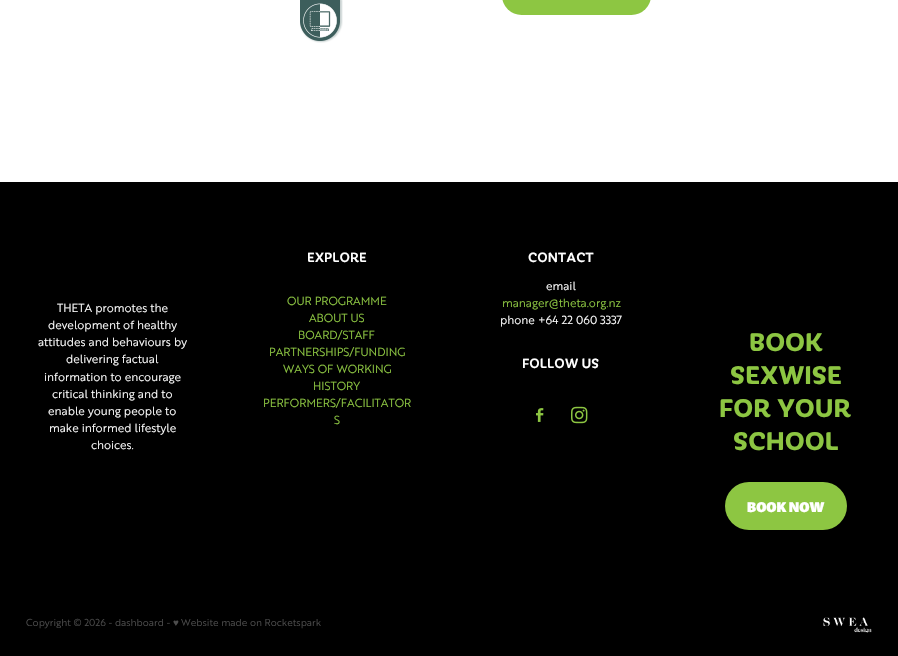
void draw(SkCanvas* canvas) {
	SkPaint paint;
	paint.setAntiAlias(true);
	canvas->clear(0xffffffff);
	canvas->drawImageRect(SkImages::DeferredFromEncodedData(SkData::MakeFromFileName("img1.png")), SkRect::MakeXYWH(300, 0, 43, 43), SkSamplingOptions());
	paint.setColor(0xff8dc642);
	canvas->drawRoundRect(SkRect::MakeXYWH(502, -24, 149, 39), 24, 24, paint);
	paint.setColor(0xff000000);
	canvas->drawRect(SkRect::MakeXYWH(0, 182, 898, 474), paint);
	SkFont f1(fontMgr->matchFamilyStyle("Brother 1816", SkFontStyle::Normal()), 11.4);
	f1.setSubpixel(true);
	paint.setColor(0xffffffff);
	canvas->drawString("THETA promotes the", 57, 312, f1, paint);
	canvas->drawString("development of healthy", 48, 329, f1, paint);
	canvas->drawString("attitudes and behaviours by", 38, 346, f1, paint);
	canvas->drawString("delivering factual", 66, 363, f1, paint);
	canvas->drawString("information to encourage", 44, 381, f1, paint);
	canvas->drawString("critical thinking and to", 52, 398, f1, paint);
	canvas->drawString("enable young people to", 48, 415, f1, paint);
	canvas->drawString("make informed lifestyle", 49, 432, f1, paint);
	canvas->drawString("choices.", 91, 449, f1, paint);
	SkFont f2(fontMgr->matchFamilyStyle("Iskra", SkFontStyle(500, SkFontStyle::kNormal_Width, SkFontStyle::kUpright_Slant)), 14.5);
	f2.setSubpixel(true);
	canvas->drawString("EXPLORE", 307, 262, f2, paint);
	paint.setColor(0xff8dc642);
	canvas->drawString("OUR PROGRAMME", 287, 305, f1, paint);
	canvas->drawString("ABOUT US", 309, 322, f1, paint);
	canvas->drawString("BOARD/STAFF", 298, 339, f1, paint);
	canvas->drawString("PARTNERSHIPS/FUNDING", 269, 356, f1, paint);
	canvas->drawString("WAYS OF WORKING", 283, 373, f1, paint);
	canvas->drawString("HISTORY", 313, 390, f1, paint);
	canvas->drawString("PERFORMERS/FACILITATOR", 263, 407, f1, paint);
	canvas->drawString("S", 334, 424, f1, paint);
	paint.setColor(0xffffffff);
	canvas->drawString("CONTACT", 528, 262, f2, paint);
	canvas->drawString("email", 546, 290, f1, paint);
	paint.setColor(0xff8dc642);
	canvas->drawString("manager@theta.org.nz", 502, 307, f1, paint);
	paint.setColor(0xffffffff);
	canvas->drawString("phone +64 22 060 3337", 500, 324, f1, paint);
	canvas->drawString("FOLLOW US", 522, 368, f2, paint);
	canvas->drawImageRect(SkImages::DeferredFromEncodedData(SkData::MakeFromFileName("img2.png")), SkRect::MakeXYWH(536, 408, 8, 14), SkSamplingOptions());
	canvas->drawImageRect(SkImages::DeferredFromEncodedData(SkData::MakeFromFileName("img3.png")), SkRect::MakeXYWH(571, 406, 17, 18), SkSamplingOptions());
	SkFont f3(fontMgr->matchFamilyStyle("Iskra", SkFontStyle::Bold()), 27.5);
	f3.setSubpixel(true);
	paint.setColor(0xff8dc642);
	canvas->drawString("BOOK", 749, 351, f3, paint);
	canvas->drawString("SEXWISE", 730, 384, f3, paint);
	canvas->drawString("FOR YOUR", 719, 417, f3, paint);
	canvas->drawString("SCHOOL", 733, 450, f3, paint);
	canvas->drawRoundRect(SkRect::MakeXYWH(725, 482, 122, 48), 24, 24, paint);
	SkFont f4(fontMgr->matchFamilyStyle("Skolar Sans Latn", SkFontStyle(900, SkFontStyle::kNormal_Width, SkFontStyle::kUpright_Slant)), 14.5);
	f4.setSubpixel(true);
	paint.setColor(0xffffffff);
	canvas->drawString("BOOK NOW", 747, 512, f4, paint);
	SkFont f5(fontMgr->matchFamilyStyle("Brother 1816", SkFontStyle::Normal()), 9.75);
	f5.setSubpixel(true);
	paint.setColor(0xff4d4d4d);
	canvas->drawString("Copyright © 2026 - dashboard -", 26, 626, f5, paint);
	SkFont f6(fontMgr->matchFamilyStyle("Liberation Sans", SkFontStyle::Normal()), 9.75);
	f6.setSubpixel(true);
	canvas->drawString("♥", 173, 626, f6, paint);
	canvas->drawString("Website made on Rocketspark", 181, 626, f5, paint);
	canvas->drawImageRect(SkImages::DeferredFromEncodedData(SkData::MakeFromFileName("img4.png")), SkRect::MakeXYWH(823, 617, 49, 16), SkSamplingOptions());
}
